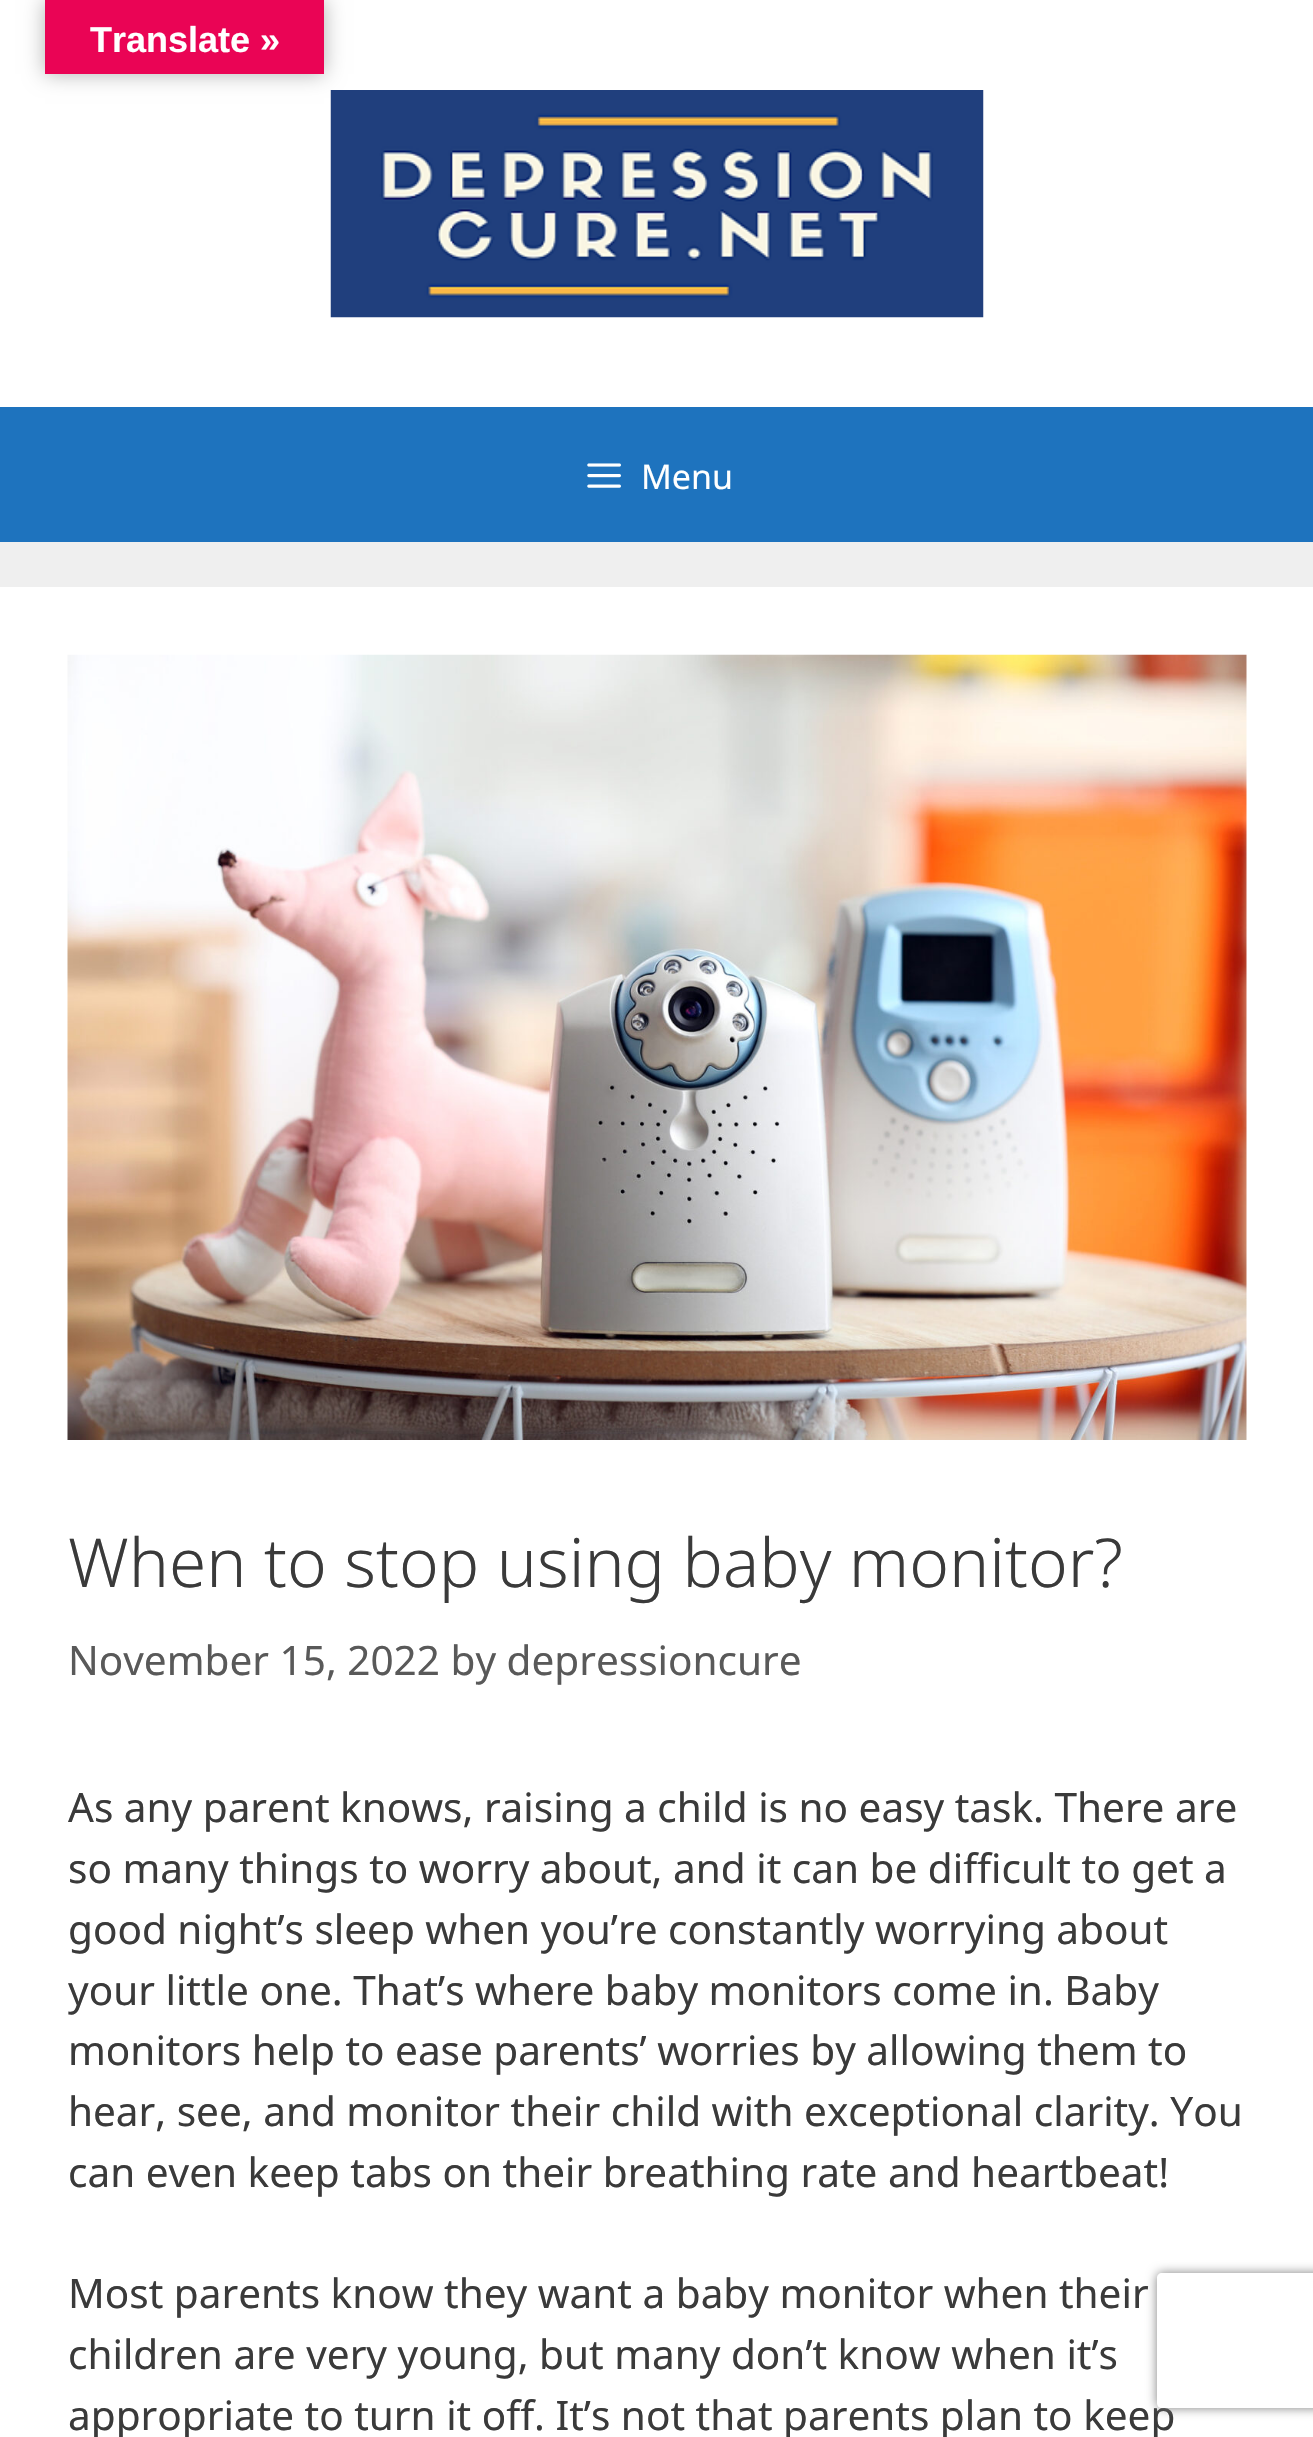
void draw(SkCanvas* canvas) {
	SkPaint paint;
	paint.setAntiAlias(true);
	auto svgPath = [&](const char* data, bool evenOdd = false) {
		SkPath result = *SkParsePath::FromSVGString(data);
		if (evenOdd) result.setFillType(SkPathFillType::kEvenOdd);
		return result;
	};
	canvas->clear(0xffefefef);
	paint.setColor(0xffffffff);
	canvas->drawRect(SkRect::MakeXYWH(0, 0, 1313, 407), paint);
	canvas->drawImageRect(SkImages::DeferredFromEncodedData(SkData::MakeFromFileName("img1.png")), SkRect::MakeXYWH(330, 90, 654, 228), SkSamplingOptions());
	paint.setColor(0x4d000000);
	paint.setMaskFilter(SkMaskFilter::MakeBlur(kNormal_SkBlurStyle, 10));
	canvas->drawRect(SkRect::MakeXYWH(45, 0, 279, 74), paint);
	paint.setMaskFilter(nullptr);
	paint.setColor(0xffea0455);
	canvas->drawRect(SkRect::MakeXYWH(45, 0, 279, 74), paint);
	SkFont f1(fontMgr->matchFamilyStyle("Liberation Sans", SkFontStyle::Bold()), 36);
	f1.setSubpixel(true);
	paint.setColor(0xffffffff);
	canvas->drawString("Translate »", 90, 52, f1, paint);
	paint.setColor(0xff1e73be);
	canvas->drawRect(SkRect::MakeXYWH(0, 407, 1313, 135), paint);
	canvas->drawImageRect(SkImages::DeferredFromEncodedData(SkData::MakeFromFileName("img2.png")), SkRect::MakeXYWH(587, 463, 34, 25), SkSamplingOptions());
	SkFont f2(fontMgr->matchFamilyStyle("Noto Sans", SkFontStyle::Normal()), 34);
	f2.setSubpixel(true);
	paint.setColor(0xffffffff);
	canvas->drawString("Menu", 641, 489, f2, paint);
	canvas->drawRect(SkRect::MakeXYWH(0, 587, 1313, 1850), paint);
	canvas->drawImageRect(SkImages::DeferredFromEncodedData(SkData::MakeFromFileName("img3.png")), SkRect::MakeXYWH(67, 654, 1180, 786), SkSamplingOptions());
	SkFont f3(fontMgr->matchFamilyStyle("Noto Sans", SkFontStyle(300, SkFontStyle::kNormal_Width, SkFontStyle::kUpright_Slant)), 67.5);
	f3.setSubpixel(true);
	paint.setColor(0xff3a3a3a);
	canvas->drawString("When to stop using baby monitor?", 68, 1587, f3, paint);
	SkFont f4(fontMgr->matchFamilyStyle("Noto Sans", SkFontStyle::Normal()), 40.5);
	f4.setSubpixel(true);
	paint.setColor(0xff595959);
	canvas->drawString("November 15, 2022 by depressioncure", 68, 1675, f4, paint);
	paint.setColor(0xff3a3a3a);
	canvas->drawString("As any parent knows, raising a child is no easy task. There are", 68, 1822, f4, paint);
	canvas->drawString("so many things to worry about, and it can be difficult to get a", 68, 1883, f4, paint);
	canvas->drawString("good night’s sleep when you’re constantly worrying about", 68, 1944, f4, paint);
	canvas->drawString("your little one. That’s where baby monitors come in. Baby", 68, 2005, f4, paint);
	canvas->drawString("monitors help to ease parents’ worries by allowing them to", 68, 2065, f4, paint);
	canvas->drawString("hear, see, and monitor their child with exceptional clarity. You", 68, 2126, f4, paint);
	canvas->drawString("can even keep tabs on their breathing rate and heartbeat!", 68, 2187, f4, paint);
	canvas->drawString("Most parents know they want a baby monitor when their", 68, 2308, f4, paint);
	canvas->drawString("children are very young, but many don’t know when it’s", 68, 2369, f4, paint);
	canvas->drawString("appropriate to turn it off. It’s not that parents plan to keep", 68, 2430, f4, paint);
	canvas->save();
	canvas->clipPath(svgPath("M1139 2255H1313V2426H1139ZM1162 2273H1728C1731 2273 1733 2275 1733 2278V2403C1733 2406 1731 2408 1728 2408H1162C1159 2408 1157 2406 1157 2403V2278C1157 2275 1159 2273 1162 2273Z", true), true);
	paint.setColor(0xff808080);
	paint.setMaskFilter(SkMaskFilter::MakeBlur(kNormal_SkBlurStyle, 5.5));
	canvas->drawRoundRect(SkRect::MakeXYWH(1157, 2273, 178, 135), 5, 5, paint);
	paint.setMaskFilter(nullptr);
	canvas->restore();
}
